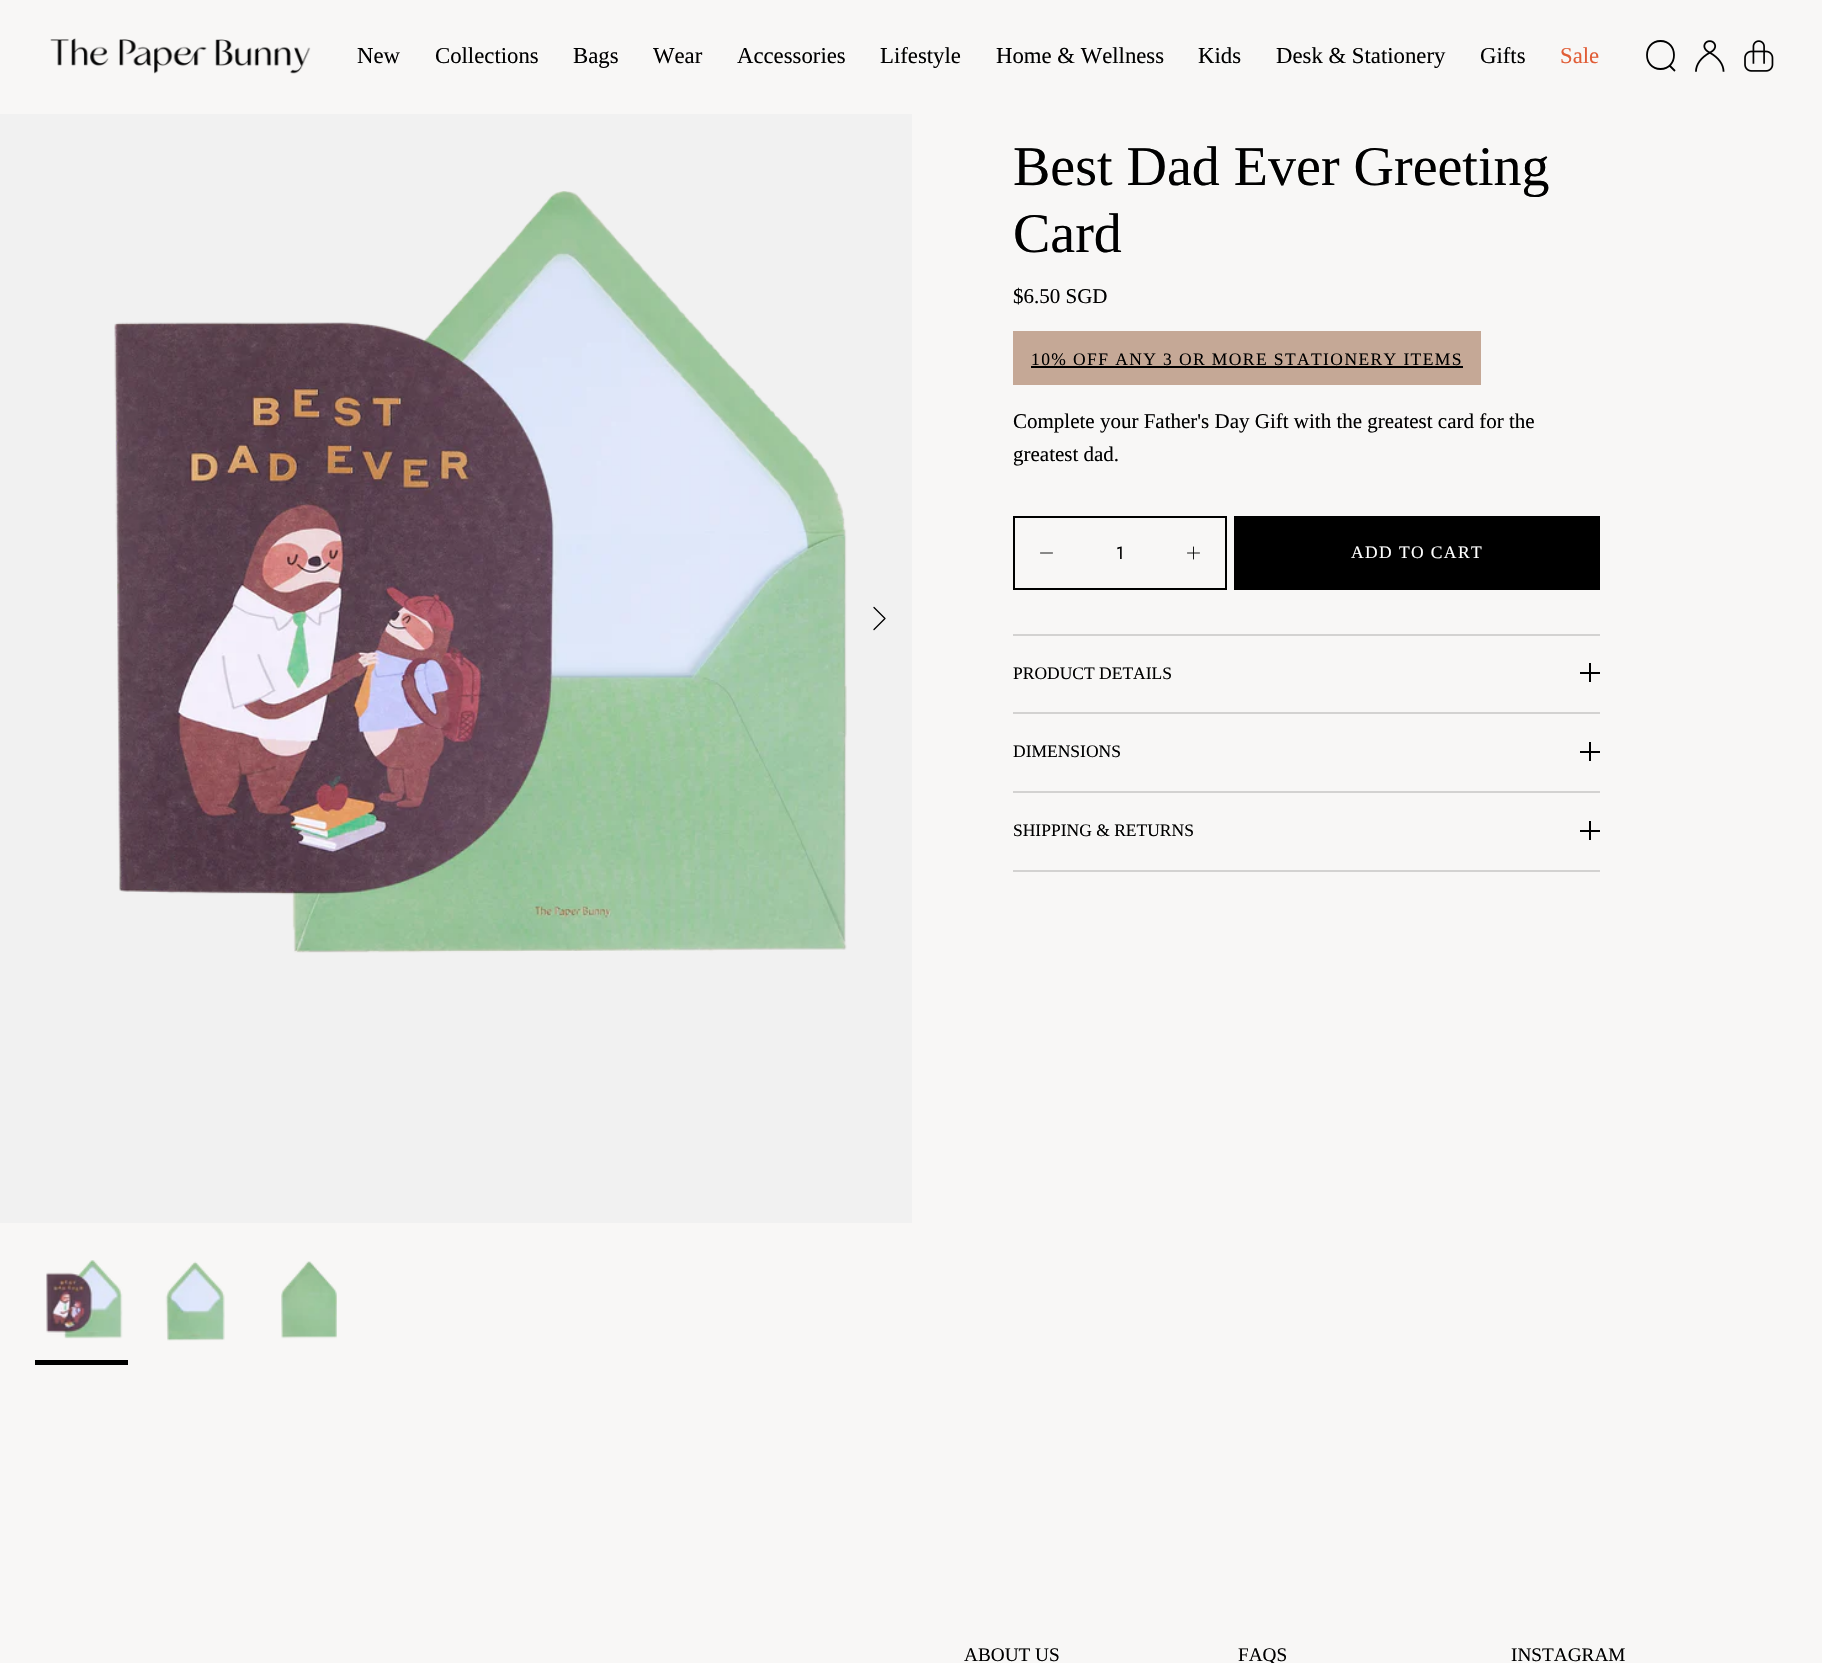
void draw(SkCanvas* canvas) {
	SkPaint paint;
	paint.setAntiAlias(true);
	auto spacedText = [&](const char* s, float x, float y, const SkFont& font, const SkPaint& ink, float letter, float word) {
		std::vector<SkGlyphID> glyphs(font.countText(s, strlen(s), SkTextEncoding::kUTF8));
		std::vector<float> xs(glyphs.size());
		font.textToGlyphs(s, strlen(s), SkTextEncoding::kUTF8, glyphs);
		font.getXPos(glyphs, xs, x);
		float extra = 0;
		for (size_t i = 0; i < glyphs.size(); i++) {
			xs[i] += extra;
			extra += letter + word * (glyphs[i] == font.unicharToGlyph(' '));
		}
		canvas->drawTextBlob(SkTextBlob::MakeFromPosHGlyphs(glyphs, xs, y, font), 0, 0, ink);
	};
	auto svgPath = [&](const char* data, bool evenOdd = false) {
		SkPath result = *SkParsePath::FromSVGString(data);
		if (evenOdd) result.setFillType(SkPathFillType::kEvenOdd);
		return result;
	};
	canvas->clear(0xfff8f7f6);
	canvas->drawImageRect(SkImages::DeferredFromEncodedData(SkData::MakeFromFileName("img1.png")), SkRect::MakeXYWH(50, 38, 261, 36), SkSamplingOptions());
	SkFont f1(fontMgr->matchFamilyStyle("Liberation Serif", SkFontStyle::Normal()), 22.75);
	f1.setSubpixel(true);
	paint.setColor(0xff000000);
	canvas->drawString("New", 357, 63, f1, paint);
	canvas->drawString("Collections", 435, 63, f1, paint);
	canvas->drawString("Bags", 573, 63, f1, paint);
	canvas->drawString("Wear", 653, 63, f1, paint);
	canvas->drawString("Accessories", 737, 63, f1, paint);
	canvas->drawString("Lifestyle", 880, 63, f1, paint);
	canvas->drawString("Home & Wellness", 996, 63, f1, paint);
	canvas->drawString("Kids", 1198, 63, f1, paint);
	canvas->drawString("Desk & Stationery", 1276, 63, f1, paint);
	canvas->drawString("Gifts", 1480, 63, f1, paint);
	paint.setColor(0xffe15d36);
	canvas->drawString("Sale", 1560, 63, f1, paint);
	paint.setStroke(true);
	paint.setStrokeWidth(1.8);
	paint.setColor(0xff000000);
	canvas->drawPath(svgPath("M1660.5 69C1678.5 69 1678.5 41 1660.5 41C1642.5 41 1642.5 69 1660.5 69ZM1669.5 65.5L1675 71"), paint);
	canvas->drawImageRect(SkImages::DeferredFromEncodedData(SkData::MakeFromFileName("img2.png")), SkRect::MakeXYWH(1695, 40, 30, 32), SkSamplingOptions());
	canvas->drawImageRect(SkImages::DeferredFromEncodedData(SkData::MakeFromFileName("img3.png")), SkRect::MakeXYWH(1744, 40, 30, 32), SkSamplingOptions());
	paint.setStroke(false);
	paint.setColor(0xfff1f1f1);
	canvas->drawRect(SkRect::MakeXYWH(0, 114, 912, 1109), paint);
	canvas->drawImageRect(SkImages::DeferredFromEncodedData(SkData::MakeFromFileName("img4.png")), SkRect::MakeXYWH(114, 191, 733, 762), SkSamplingOptions());
	paint.setStroke(true);
	paint.setStrokeWidth(1.3);
	paint.setStrokeCap(SkPaint::kRound_Cap);
	paint.setStrokeJoin(SkPaint::kRound_Join);
	paint.setColor(0xff000000);
	canvas->drawPath(svgPath("M874 629.5L885 618.5L874 607.5"), paint);
	canvas->drawImageRect(SkImages::DeferredFromEncodedData(SkData::MakeFromFileName("img5.png")), SkRect::MakeXYWH(46, 1260, 77, 79), SkSamplingOptions());
	paint.setStroke(false);
	canvas->drawRect(SkRect::MakeXYWH(35, 1360, 93, 5), paint);
	canvas->drawImageRect(SkImages::DeferredFromEncodedData(SkData::MakeFromFileName("img6.png")), SkRect::MakeXYWH(165, 1261, 60, 80), SkSamplingOptions());
	canvas->drawImageRect(SkImages::DeferredFromEncodedData(SkData::MakeFromFileName("img7.png")), SkRect::MakeXYWH(281, 1261, 56, 78), SkSamplingOptions());
	SkFont f2(fontMgr->matchFamilyStyle("Liberation Serif", SkFontStyle::Normal()), 56);
	f2.setSubpixel(true);
	canvas->drawString("Best Dad Ever Greeting", 1013, 185, f2, paint);
	canvas->drawString("Card", 1013, 252, f2, paint);
	SkFont f3(fontMgr->matchFamilyStyle("Liberation Serif", SkFontStyle::Normal()), 21);
	f3.setSubpixel(true);
	canvas->drawString("$6.50 SGD", 1013, 303, f3, paint);
	paint.setColor(0xffc5a896);
	canvas->drawRect(SkRect::MakeXYWH(1013, 331, 468, 54), paint);
	SkFont f4(fontMgr->matchFamilyStyle("Liberation Serif", SkFontStyle::Normal()), 17.5);
	f4.setSubpixel(true);
	paint.setColor(0xff000000);
	spacedText("10% OFF ANY 3 OR MORE STATIONERY ITEMS", 1031, 365, f4, paint, 1.4, 0);
	canvas->drawRect(SkRect::MakeXYWH(1031, 366, 432, 2), paint);
	canvas->drawString("Complete your Father's Day Gift with the greatest card for the", 1013, 428, f3, paint);
	canvas->drawString("greatest dad.", 1013, 461, f3, paint);
	paint.setStroke(true);
	paint.setStrokeWidth(2);
	paint.setStrokeCap(SkPaint::kButt_Cap);
	paint.setStrokeJoin(SkPaint::kMiter_Join);
	canvas->drawRect(SkRect::MakeXYWH(1014, 517, 212, 72), paint);
	paint.setStrokeWidth(0.9);
	paint.setStrokeCap(SkPaint::kRound_Cap);
	paint.setStrokeJoin(SkPaint::kRound_Join);
	canvas->drawPath(svgPath("M1040.5 553H1052.5"), paint);
	SkFont f5(fontMgr->matchFamilyStyle("Jost", SkFontStyle::Normal()), 17.5);
	f5.setSubpixel(true);
	paint.setStroke(false);
	canvas->drawString("1", 1116, 559, f5, paint);
	paint.setStroke(true);
	canvas->drawPath(svgPath("M1193.5 547V559M1187.5 553H1199.5"), paint);
	paint.setStroke(false);
	canvas->drawRect(SkRect::MakeXYWH(1234, 516, 366, 74), paint);
	paint.setColor(0xffffffff);
	spacedText("ADD TO CART", 1351, 558, f4, paint, 1.4, 0);
	paint.setColor(0xffd3d2d1);
	canvas->drawRect(SkRect::MakeXYWH(1013, 634, 587, 2), paint);
	canvas->drawRect(SkRect::MakeXYWH(1013, 712, 587, 2), paint);
	paint.setColor(0xff000000);
	canvas->drawString("PRODUCT DETAILS", 1013, 679, f4, paint);
	canvas->drawRect(SkRect::MakeXYWH(1589, 663, 2, 19), paint);
	canvas->drawRect(SkRect::MakeXYWH(1580, 672, 20, 2), paint);
	paint.setColor(0xffd3d2d1);
	canvas->drawRect(SkRect::MakeXYWH(1013, 791, 587, 2), paint);
	paint.setColor(0xff000000);
	canvas->drawString("DIMENSIONS", 1013, 757, f4, paint);
	canvas->drawRect(SkRect::MakeXYWH(1589, 742, 2, 19), paint);
	canvas->drawRect(SkRect::MakeXYWH(1580, 751, 20, 2), paint);
	paint.setColor(0xffd3d2d1);
	canvas->drawRect(SkRect::MakeXYWH(1013, 870, 587, 2), paint);
	paint.setColor(0xff000000);
	canvas->drawString("SHIPPING & RETURNS", 1013, 836, f4, paint);
	canvas->drawRect(SkRect::MakeXYWH(1589, 821, 2, 19), paint);
	canvas->drawRect(SkRect::MakeXYWH(1580, 830, 20, 2), paint);
	SkFont f6(fontMgr->matchFamilyStyle("Liberation Serif", SkFontStyle::Normal()), 19.25);
	f6.setSubpixel(true);
	canvas->drawString("ABOUT US", 964, 1661, f6, paint);
	canvas->drawString("FAQS", 1238, 1661, f6, paint);
	canvas->drawString("INSTAGRAM", 1511, 1661, f6, paint);
}
